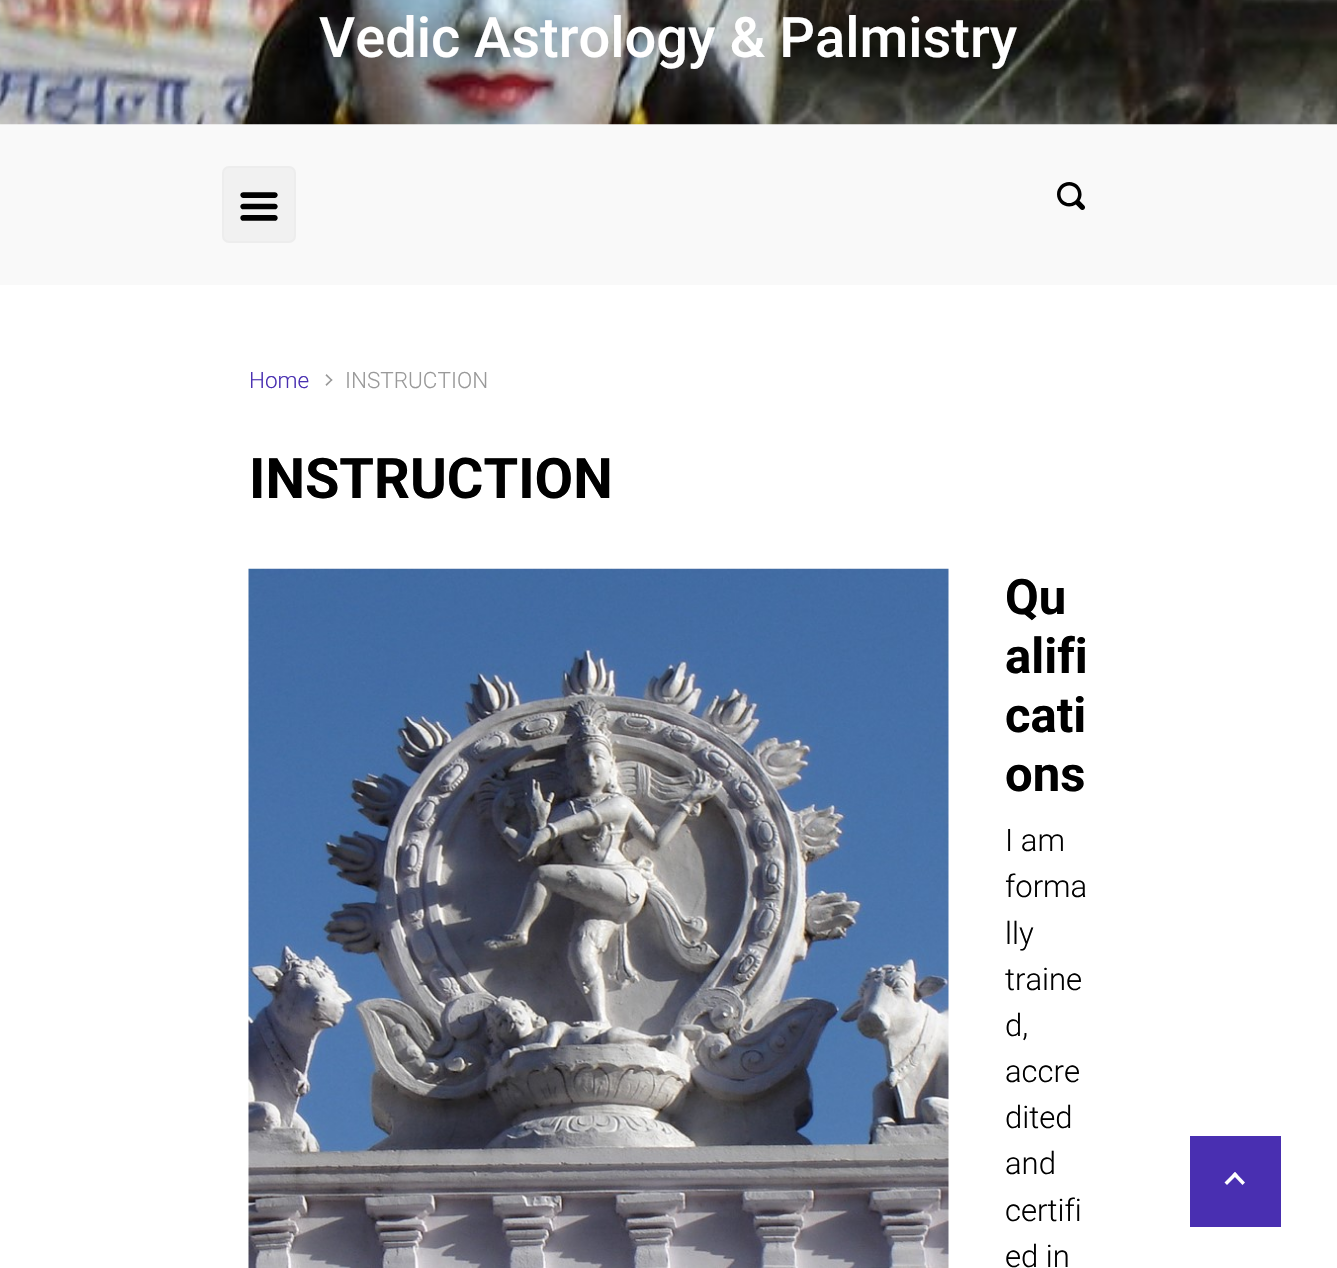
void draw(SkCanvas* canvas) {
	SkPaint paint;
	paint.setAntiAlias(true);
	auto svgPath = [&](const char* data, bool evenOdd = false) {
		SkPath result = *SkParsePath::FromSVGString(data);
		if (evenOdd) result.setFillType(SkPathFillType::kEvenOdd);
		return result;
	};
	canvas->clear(0xfff9f9f9);
	canvas->drawImageRect(SkImages::DeferredFromEncodedData(SkData::MakeFromFileName("img1.png")), SkRect::MakeXYWH(0, 0, 1337, 125), SkSamplingOptions());
	SkFont f1(fontMgr->matchFamilyStyle("Roboto", SkFontStyle(500, SkFontStyle::kNormal_Width, SkFontStyle::kUpright_Slant)), 56);
	f1.setSubpixel(true);
	paint.setColor(0xffffffff);
	canvas->drawString("Vedic Astrology & Palmistry", 319, 57, f1, paint);
	paint.setColor(0xfff1f1f1);
	canvas->drawRoundRect(SkRect::MakeXYWH(223, 167, 72, 75), 6, 6, paint);
	paint.setStroke(true);
	paint.setStrokeWidth(2);
	paint.setColor(0xffededed);
	canvas->drawRoundRect(SkRect::MakeXYWH(223, 167, 72, 75), 6, 6, paint);
	canvas->drawImageRect(SkImages::DeferredFromEncodedData(SkData::MakeFromFileName("img2.png")), SkRect::MakeXYWH(240, 192, 38, 29), SkSamplingOptions());
	canvas->drawImageRect(SkImages::DeferredFromEncodedData(SkData::MakeFromFileName("img3.png")), SkRect::MakeXYWH(1057, 182, 28, 28), SkSamplingOptions());
	paint.setStroke(false);
	paint.setColor(0xffffffff);
	canvas->drawRect(SkRect::MakeXYWH(0, 285, 1337, 983), paint);
	SkFont f2(fontMgr->matchFamilyStyle("Roboto", SkFontStyle(300, SkFontStyle::kNormal_Width, SkFontStyle::kUpright_Slant)), 22.5);
	f2.setSubpixel(true);
	paint.setColor(0xff492fb1);
	canvas->drawString("Home", 249, 388, f2, paint);
	paint.setColor(0xff999999);
	canvas->drawPath(svgPath("M325.5 375.5L326.5 374L332.5 380L331.5 381Z"), paint);
	canvas->drawPath(svgPath("M325.5 384.5L331.5 379L332.5 380L326.5 386Z"), paint);
	canvas->drawString("INSTRUCTION", 345, 388, f2, paint);
	SkFont f3(fontMgr->matchFamilyStyle("Roboto", SkFontStyle::Bold()), 56);
	f3.setSubpixel(true);
	paint.setColor(0xff000000);
	canvas->drawString("INSTRUCTION", 249, 498, f3, paint);
	canvas->drawImageRect(SkImages::DeferredFromEncodedData(SkData::MakeFromFileName("img4.png")), SkRect::MakeXYWH(248, 568, 701, 700), SkSamplingOptions());
	SkFont f4(fontMgr->matchFamilyStyle("Roboto", SkFontStyle::Bold()), 49);
	f4.setSubpixel(true);
	canvas->drawString("Qu", 1005, 614, f4, paint);
	canvas->drawString("alifi", 1005, 673, f4, paint);
	canvas->drawString("cati", 1005, 732, f4, paint);
	canvas->drawString("ons", 1005, 791, f4, paint);
	SkFont f5(fontMgr->matchFamilyStyle("Roboto", SkFontStyle(300, SkFontStyle::kNormal_Width, SkFontStyle::kUpright_Slant)), 31);
	f5.setSubpixel(true);
	canvas->drawString("I am", 1005, 851, f5, paint);
	canvas->drawString("forma", 1005, 897, f5, paint);
	canvas->drawString("lly", 1005, 944, f5, paint);
	canvas->drawString("traine", 1005, 990, f5, paint);
	canvas->drawString("d,", 1005, 1036, f5, paint);
	canvas->drawString("accre", 1005, 1082, f5, paint);
	canvas->drawString("dited", 1005, 1128, f5, paint);
	canvas->drawString("and", 1005, 1174, f5, paint);
	canvas->drawString("certifi", 1005, 1221, f5, paint);
	canvas->drawString("ed in", 1005, 1267, f5, paint);
	paint.setColor(0xff492fb1);
	canvas->drawRect(SkRect::MakeXYWH(1190, 1136, 91, 91), paint);
	paint.setColor(0xffffffff);
	canvas->drawPath(svgPath("M1224.5 1182.5L1235 1172L1237.5 1174.5L1227 1185Z"), paint);
	canvas->drawPath(svgPath("M1232.5 1174.5L1235 1172L1245 1182.5L1242.5 1185Z"), paint);
}
